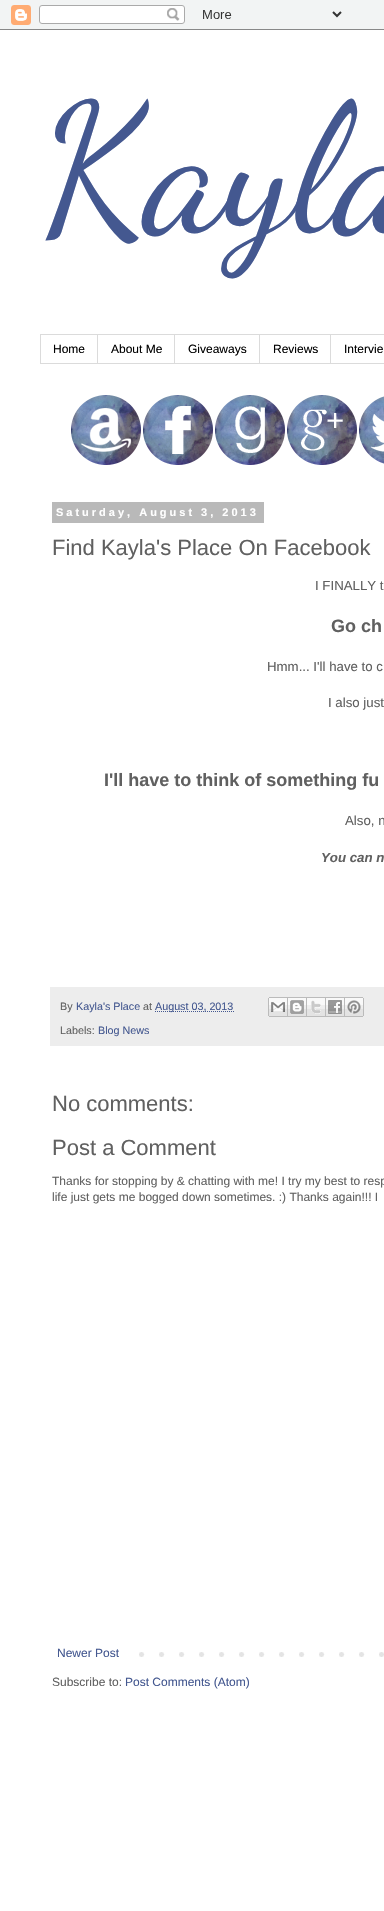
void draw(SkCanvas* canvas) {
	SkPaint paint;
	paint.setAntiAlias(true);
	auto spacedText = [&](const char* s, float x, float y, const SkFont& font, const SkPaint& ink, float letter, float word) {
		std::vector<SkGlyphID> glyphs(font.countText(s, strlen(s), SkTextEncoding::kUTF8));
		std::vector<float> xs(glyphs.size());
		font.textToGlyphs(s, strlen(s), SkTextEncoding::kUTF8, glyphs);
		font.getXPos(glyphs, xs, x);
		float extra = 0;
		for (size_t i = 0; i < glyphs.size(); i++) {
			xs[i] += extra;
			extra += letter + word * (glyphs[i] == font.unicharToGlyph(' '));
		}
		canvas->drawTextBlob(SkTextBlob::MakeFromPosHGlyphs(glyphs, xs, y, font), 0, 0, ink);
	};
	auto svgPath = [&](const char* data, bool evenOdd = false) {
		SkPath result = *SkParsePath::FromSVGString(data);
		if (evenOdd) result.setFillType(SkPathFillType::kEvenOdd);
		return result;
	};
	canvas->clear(0xffe9edec);
	canvas->drawImageRect(SkImages::DeferredFromEncodedData(SkData::MakeFromFileName("img1.png")), SkRect::MakeXYWH(0, 0, 384, 30), SkSamplingOptions());
	paint.setColor(0xffffffff);
	canvas->drawRect(SkRect::MakeXYWH(0, 30, 384, 1881), paint);
	SkFont f1(fontMgr->matchFamilyStyle("Dancing Script", SkFontStyle::Normal()), 180);
	f1.setSubpixel(true);
	paint.setColor(0xff445890);
	canvas->drawString("Kayla", 40, 228, f1, paint);
	paint.setStroke(true);
	paint.setStrokeWidth(1);
	paint.setColor(0xffdbdbdb);
	canvas->drawRect(SkRect::MakeXYWH(40.5, 334.5, 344, 29), paint);
	paint.setStroke(false);
	canvas->drawRect(SkRect::MakeXYWH(97, 335, 1, 28), paint);
	SkFont f2(fontMgr->matchFamilyStyle("Liberation Sans", SkFontStyle::Normal()), 12);
	f2.setSubpixel(true);
	paint.setColor(0xff000000);
	canvas->drawString("Home", 53, 353, f2, paint);
	paint.setColor(0xffdbdbdb);
	canvas->drawRect(SkRect::MakeXYWH(174, 335, 1, 28), paint);
	paint.setColor(0xff000000);
	canvas->drawString("About Me", 111, 353, f2, paint);
	paint.setColor(0xffdbdbdb);
	canvas->drawRect(SkRect::MakeXYWH(259, 335, 1, 28), paint);
	paint.setColor(0xff000000);
	canvas->drawString("Giveaways", 188, 353, f2, paint);
	paint.setColor(0xffdbdbdb);
	canvas->drawRect(SkRect::MakeXYWH(330, 335, 1, 28), paint);
	paint.setColor(0xff000000);
	canvas->drawString("Reviews", 273, 353, f2, paint);
	canvas->drawString("Intervie", 344, 353, f2, paint);
	canvas->drawImageRect(SkImages::DeferredFromEncodedData(SkData::MakeFromFileName("img2.png")), SkRect::MakeXYWH(71, 395, 70, 70), SkSamplingOptions());
	canvas->drawImageRect(SkImages::DeferredFromEncodedData(SkData::MakeFromFileName("img3.png")), SkRect::MakeXYWH(143, 395, 70, 70), SkSamplingOptions());
	canvas->drawImageRect(SkImages::DeferredFromEncodedData(SkData::MakeFromFileName("img4.png")), SkRect::MakeXYWH(215, 395, 70, 70), SkSamplingOptions());
	canvas->drawImageRect(SkImages::DeferredFromEncodedData(SkData::MakeFromFileName("img5.png")), SkRect::MakeXYWH(287, 395, 70, 70), SkSamplingOptions());
	canvas->drawImageRect(SkImages::DeferredFromEncodedData(SkData::MakeFromFileName("img6.png")), SkRect::MakeXYWH(359, 396, 25, 68), SkSamplingOptions());
	paint.setColor(0xffb9b9b9);
	canvas->drawRect(SkRect::MakeXYWH(52, 502, 212, 21), paint);
	SkFont f3(fontMgr->matchFamilyStyle("Liberation Sans", SkFontStyle::Bold()), 11);
	f3.setSubpixel(true);
	paint.setColor(0xffffffff);
	spacedText("Saturday, August 3, 2013", 56, 516, f3, paint, 3, 0);
	SkFont f4(fontMgr->matchFamilyStyle("Liberation Sans", SkFontStyle::Normal()), 22);
	f4.setSubpixel(true);
	paint.setColor(0xff606060);
	canvas->drawString("Find Kayla's Place On Facebook", 52, 555, f4, paint);
	SkFont f5(fontMgr->matchFamilyStyle("Liberation Sans", SkFontStyle::Normal()), 13.25);
	f5.setSubpixel(true);
	canvas->drawString("I FINALLY t", 315, 590, f5, paint);
	SkFont f6(fontMgr->matchFamilyStyle("Liberation Sans", SkFontStyle::Bold()), 18);
	f6.setSubpixel(true);
	canvas->drawString("Go ch", 331, 632, f6, paint);
	canvas->drawString("Hmm... I'll have to c", 267, 671, f5, paint);
	canvas->drawString("I also just", 328, 707, f5, paint);
	canvas->drawString("I'll have to think of something fu", 104, 786, f6, paint);
	canvas->drawString("Also, n", 345, 825, f5, paint);
	SkFont f7(fontMgr->matchFamilyStyle("Liberation Sans", SkFontStyle::BoldItalic()), 13.25);
	f7.setSubpixel(true);
	canvas->drawString("You can n", 321, 862, f7, paint);
	paint.setColor(0xffededed);
	canvas->drawRect(SkRect::MakeXYWH(50, 987, 334, 59), paint);
	SkFont f8(fontMgr->matchFamilyStyle("Liberation Sans", SkFontStyle::Normal()), 10.75);
	f8.setSubpixel(true);
	paint.setColor(0xff606060);
	canvas->drawString("By", 60, 1010, f8, paint);
	paint.setColor(0xff445890);
	canvas->drawString("Kayla's Place", 76, 1010, f8, paint);
	paint.setColor(0xff606060);
	canvas->drawString("at", 143, 1010, f8, paint);
	paint.setStroke(true);
	paint.setColor(0xff445890);
	paint.setPathEffect(SkDashPathEffect::Make({{1, 1}}, 0));
	canvas->drawPath(svgPath("M155 1011.5H234"), paint);
	paint.setPathEffect(nullptr);
	paint.setStroke(false);
	canvas->drawString("August 03, 2013", 155, 1010, f8, paint);
	canvas->drawImageRect(SkImages::DeferredFromEncodedData(SkData::MakeFromFileName("img7.png")), SkRect::MakeXYWH(268, 997, 20, 20), SkSamplingOptions());
	canvas->drawImageRect(SkImages::DeferredFromEncodedData(SkData::MakeFromFileName("img8.png")), SkRect::MakeXYWH(288, 997, 19, 20), SkSamplingOptions());
	canvas->drawImageRect(SkImages::DeferredFromEncodedData(SkData::MakeFromFileName("img9.png")), SkRect::MakeXYWH(307, 997, 19, 20), SkSamplingOptions());
	canvas->drawImageRect(SkImages::DeferredFromEncodedData(SkData::MakeFromFileName("img10.png")), SkRect::MakeXYWH(326, 997, 19, 20), SkSamplingOptions());
	canvas->drawImageRect(SkImages::DeferredFromEncodedData(SkData::MakeFromFileName("img11.png")), SkRect::MakeXYWH(345, 997, 19, 20), SkSamplingOptions());
	paint.setColor(0xff606060);
	canvas->drawString("Labels:", 60, 1034, f8, paint);
	paint.setColor(0xff445890);
	canvas->drawString("Blog News", 98, 1034, f8, paint);
	paint.setColor(0xff606060);
	canvas->drawString("No comments:", 52, 1111, f4, paint);
	canvas->drawString("Post a Comment", 52, 1155, f4, paint);
	canvas->drawString("Thanks for stopping by & chatting with me! I try my best to resp", 52, 1185, f2, paint);
	canvas->drawString("life just gets me bogged down sometimes. :) Thanks again!!! I", 52, 1201, f2, paint);
	canvas->drawImageRect(SkImages::DeferredFromEncodedData(SkData::MakeFromFileName("img12.png")), SkRect::MakeXYWH(139, 1652, 245, 5), SkSamplingOptions());
	paint.setColor(0xff445890);
	canvas->drawString("Newer Post", 57, 1657, f2, paint);
	paint.setColor(0xff606060);
	canvas->drawString("Subscribe to:", 52, 1686, f2, paint);
	paint.setColor(0xff445890);
	canvas->drawString("Post Comments (Atom)", 125, 1686, f2, paint);
}
